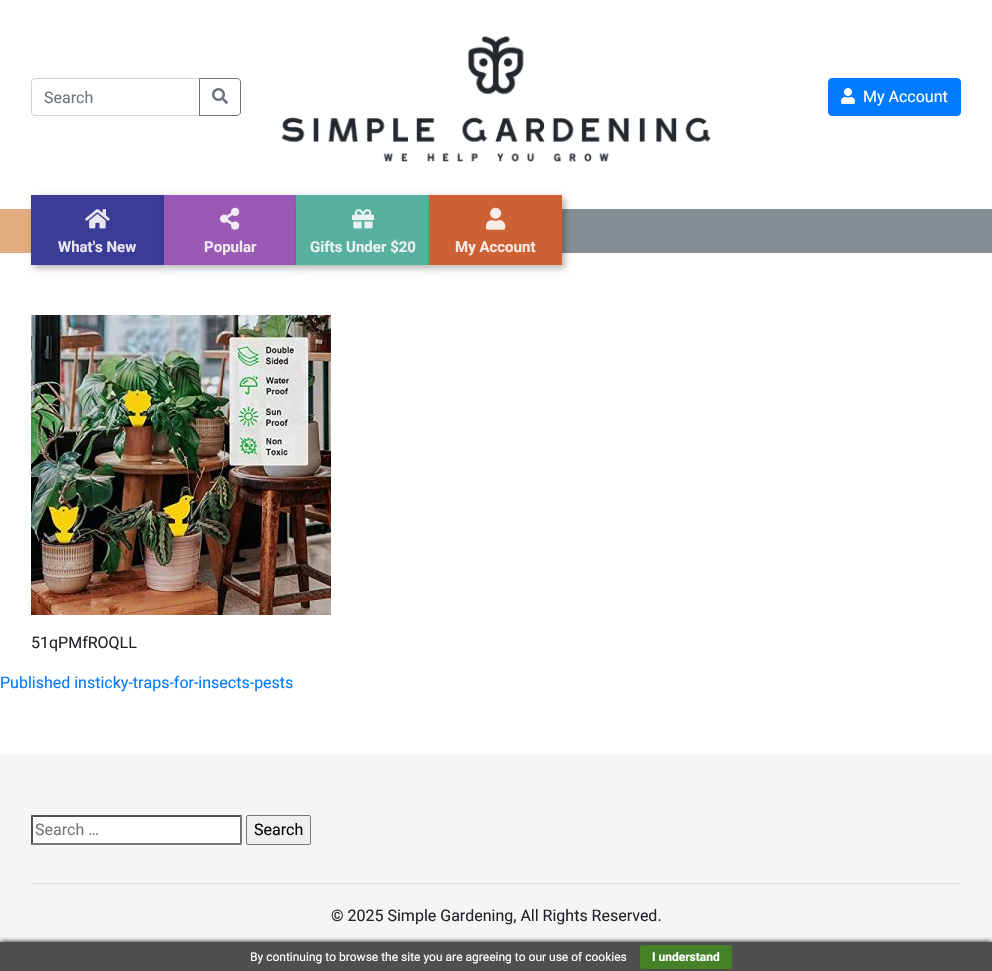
void draw(SkCanvas* canvas) {
	SkPaint paint;
	paint.setAntiAlias(true);
	auto svgPath = [&](const char* data, bool evenOdd = false) {
		SkPath result = *SkParsePath::FromSVGString(data);
		if (evenOdd) result.setFillType(SkPathFillType::kEvenOdd);
		return result;
	};
	canvas->clear(0xffffffff);
	paint.setStroke(true);
	paint.setStrokeWidth(1);
	paint.setColor(0xffced4da);
	canvas->drawPath(svgPath("M35 78.5H199.5V115.5H35C33 115.5 31.5 114 31.5 112V82C31.5 80 33 78.5 35 78.5Z"), paint);
	SkFont f1(fontMgr->matchFamilyStyle("Roboto", SkFontStyle::Normal()), 16);
	f1.setSubpixel(true);
	paint.setStroke(false);
	paint.setColor(0xff6c757d);
	canvas->drawString("Search", 44, 103, f1, paint);
	paint.setStroke(true);
	canvas->drawPath(svgPath("M199.5 78.5H237C239 78.5 240.5 80 240.5 82V112C240.5 114 239 115.5 237 115.5H199.5Z"), paint);
	canvas->drawImageRect(SkImages::DeferredFromEncodedData(SkData::MakeFromFileName("img1.png")), SkRect::MakeXYWH(212, 88, 16, 16), SkSamplingOptions());
	canvas->drawImageRect(SkImages::DeferredFromEncodedData(SkData::MakeFromFileName("img2.png")), SkRect::MakeXYWH(281, 35, 430, 127), SkSamplingOptions());
	paint.setStroke(false);
	paint.setColor(0xff007bff);
	canvas->drawRoundRect(SkRect::MakeXYWH(828.5, 78.5, 132, 37), 3.5, 3.5, paint);
	paint.setStroke(true);
	canvas->drawRoundRect(SkRect::MakeXYWH(828.5, 78.5, 132, 37), 3.5, 3.5, paint);
	canvas->drawImageRect(SkImages::DeferredFromEncodedData(SkData::MakeFromFileName("img3.png")), SkRect::MakeXYWH(841, 88, 14, 16), SkSamplingOptions());
	paint.setStroke(false);
	paint.setColor(0xffffffff);
	canvas->drawString("My Account", 863, 102, f1, paint);
	paint.setColor(0xffe3ad7f);
	canvas->drawRect(SkRect::MakeXYWH(0, 209, 31, 44), paint);
	paint.setColor(0x4d000000);
	paint.setMaskFilter(SkMaskFilter::MakeBlur(kNormal_SkBlurStyle, 3.5));
	canvas->drawRect(SkRect::MakeXYWH(34, 198, 133, 70), paint);
	paint.setMaskFilter(nullptr);
	paint.setColor(0xff3b3b98);
	canvas->drawRect(SkRect::MakeXYWH(31, 195, 133, 70), paint);
	canvas->drawImageRect(SkImages::DeferredFromEncodedData(SkData::MakeFromFileName("img4.png")), SkRect::MakeXYWH(85, 209, 25, 20), SkSamplingOptions());
	SkFont f2(fontMgr->matchFamilyStyle("Roboto", SkFontStyle::Bold()), 15);
	f2.setSubpixel(true);
	paint.setColor(0xffe6e6ef);
	canvas->drawString("What's New", 58, 252, f2, paint);
	paint.setColor(0x4d000000);
	paint.setMaskFilter(SkMaskFilter::MakeBlur(kNormal_SkBlurStyle, 3.5));
	canvas->drawRect(SkRect::MakeXYWH(167, 198, 132, 70), paint);
	paint.setMaskFilter(nullptr);
	paint.setColor(0xff9b59b6);
	canvas->drawRect(SkRect::MakeXYWH(164, 195, 132, 70), paint);
	canvas->drawImageRect(SkImages::DeferredFromEncodedData(SkData::MakeFromFileName("img5.png")), SkRect::MakeXYWH(220, 207, 20, 23), SkSamplingOptions());
	paint.setColor(0xfff0e9f2);
	canvas->drawString("Popular", 204, 252, f2, paint);
	paint.setColor(0x4d000000);
	paint.setMaskFilter(SkMaskFilter::MakeBlur(kNormal_SkBlurStyle, 3.5));
	canvas->drawRect(SkRect::MakeXYWH(299, 198, 133, 70), paint);
	paint.setMaskFilter(nullptr);
	paint.setColor(0xff58b19f);
	canvas->drawRect(SkRect::MakeXYWH(296, 195, 133, 70), paint);
	canvas->drawImageRect(SkImages::DeferredFromEncodedData(SkData::MakeFromFileName("img6.png")), SkRect::MakeXYWH(352, 209, 22, 20), SkSamplingOptions());
	paint.setColor(0xffe9f2f0);
	canvas->drawString("Gifts Under $20", 310, 252, f2, paint);
	paint.setColor(0xff858e95);
	canvas->drawRect(SkRect::MakeXYWH(562, 209, 430, 44), paint);
	paint.setColor(0x4d000000);
	paint.setMaskFilter(SkMaskFilter::MakeBlur(kNormal_SkBlurStyle, 3.5));
	canvas->drawRect(SkRect::MakeXYWH(432, 198, 133, 70), paint);
	paint.setMaskFilter(nullptr);
	paint.setColor(0xffcd6133);
	canvas->drawRect(SkRect::MakeXYWH(429, 195, 133, 70), paint);
	canvas->drawImageRect(SkImages::DeferredFromEncodedData(SkData::MakeFromFileName("img7.png")), SkRect::MakeXYWH(486, 207, 20, 23), SkSamplingOptions());
	paint.setColor(0xfff5eae5);
	canvas->drawString("My Account", 455, 252, f2, paint);
	canvas->drawImageRect(SkImages::DeferredFromEncodedData(SkData::MakeFromFileName("img8.png")), SkRect::MakeXYWH(31, 315, 300, 300), SkSamplingOptions());
	paint.setColor(0xff212529);
	canvas->drawString("51qPMfROQLL", 31, 648, f1, paint);
	paint.setColor(0xff007bff);
	canvas->drawString("Published insticky-traps-for-insects-pests", 0, 688, f1, paint);
	paint.setColor(0xfff5f5f5);
	canvas->drawRect(SkRect::MakeXYWH(0, 755, 992, 187), paint);
	paint.setColor(0xffffffff);
	canvas->drawRect(SkRect::MakeXYWH(31, 815, 211, 30), paint);
	paint.setColor(0xff4f4f4f);
	canvas->drawPath(svgPath("M31 815H242L240 817H33Z"), paint);
	paint.setColor(0xff767676);
	canvas->drawPath(svgPath("M242 815V845L240 843V817Z"), paint);
	canvas->drawPath(svgPath("M242 845H31L33 843H240Z"), paint);
	paint.setColor(0xff4f4f4f);
	canvas->drawPath(svgPath("M31 845V815L33 817V843Z"), paint);
	paint.setColor(0xff757575);
	canvas->drawString("Search …", 35, 835, f1, paint);
	paint.setColor(0xffefefef);
	canvas->drawRoundRect(SkRect::MakeXYWH(246.5, 815.5, 64, 29), 1.5, 1.5, paint);
	paint.setStroke(true);
	paint.setColor(0xff767676);
	canvas->drawRoundRect(SkRect::MakeXYWH(246.5, 815.5, 64, 29), 1.5, 1.5, paint);
	paint.setStroke(false);
	paint.setColor(0xff000000);
	canvas->drawString("Search", 254, 835, f1, paint);
	paint.setColor(0xffdddddd);
	canvas->drawRect(SkRect::MakeXYWH(31, 883, 930, 1), paint);
	paint.setColor(0xff212529);
	canvas->drawString("© 2025 Simple Gardening, All Rights Reserved.", 331, 921, f1, paint);
	paint.setColor(0xff000000);
	paint.setMaskFilter(SkMaskFilter::MakeBlur(kNormal_SkBlurStyle, 2.5));
	canvas->drawRect(SkRect::MakeXYWH(0, 942, 992, 29), paint);
	paint.setMaskFilter(nullptr);
	paint.setColor(0xff4f4f4f);
	canvas->drawRect(SkRect::MakeXYWH(0, 942, 992, 29), paint);
	SkFont f3(fontMgr->matchFamilyStyle("Roboto", SkFontStyle::Normal()), 12);
	f3.setSubpixel(true);
	paint.setColor(0xffffffff);
	canvas->drawString("By continuing to browse the site you are agreeing to our use of cookies", 250, 961, f3, paint);
	paint.setColor(0xff458227);
	canvas->drawRoundRect(SkRect::MakeXYWH(640, 945, 92, 24), 3, 3, paint);
	SkFont f4(fontMgr->matchFamilyStyle("Roboto", SkFontStyle::Bold()), 12);
	f4.setSubpixel(true);
	paint.setColor(0xffffffff);
	canvas->drawString("I understand", 652, 961, f4, paint);
}
